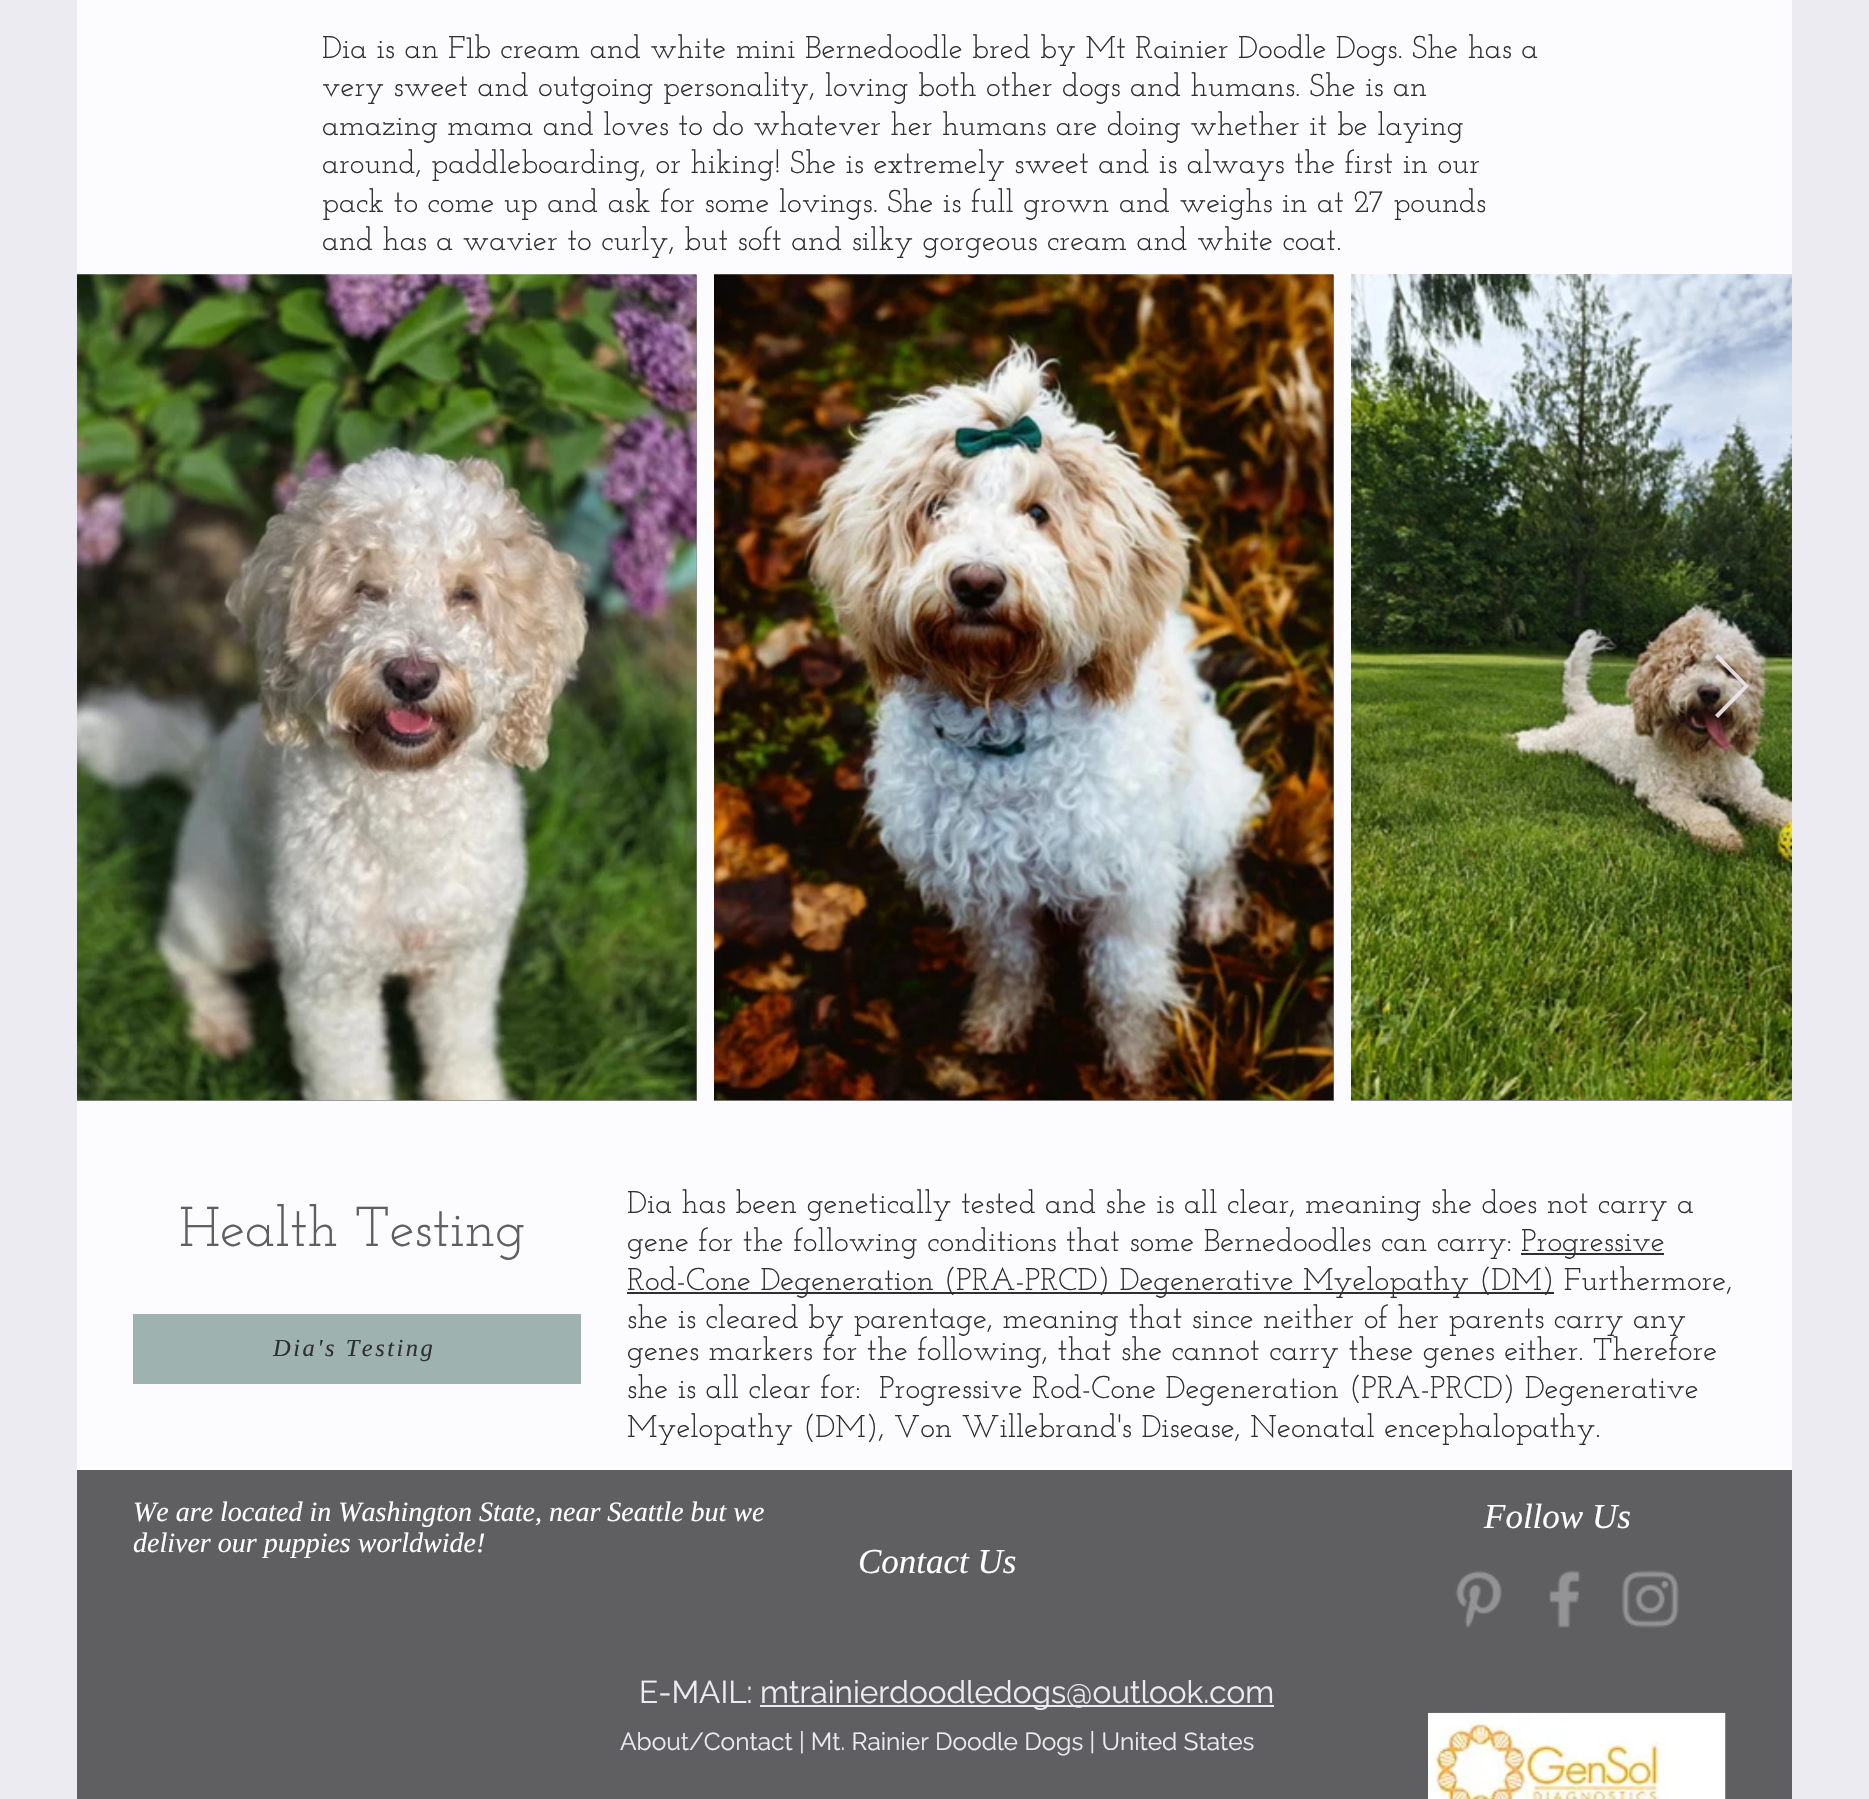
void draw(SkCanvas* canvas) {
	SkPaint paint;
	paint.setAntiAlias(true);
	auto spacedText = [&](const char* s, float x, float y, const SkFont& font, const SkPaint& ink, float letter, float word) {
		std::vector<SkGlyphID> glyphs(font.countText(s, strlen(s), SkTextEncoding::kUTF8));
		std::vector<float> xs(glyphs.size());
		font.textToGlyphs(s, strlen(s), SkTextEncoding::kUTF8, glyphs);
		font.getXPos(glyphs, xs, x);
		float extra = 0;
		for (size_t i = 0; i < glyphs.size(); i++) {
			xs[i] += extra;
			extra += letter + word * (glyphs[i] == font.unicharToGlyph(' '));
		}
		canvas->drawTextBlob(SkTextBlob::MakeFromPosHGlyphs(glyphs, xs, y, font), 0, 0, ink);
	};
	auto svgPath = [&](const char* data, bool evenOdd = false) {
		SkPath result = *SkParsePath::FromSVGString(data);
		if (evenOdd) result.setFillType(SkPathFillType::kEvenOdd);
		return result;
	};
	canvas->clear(0xffedebf2);
	paint.setColor(0xfffcfcfe);
	canvas->drawRect(SkRect::MakeXYWH(77, 0, 1715, 1470), paint);
	SkFont f1(fontMgr->matchFamilyStyle("Josefin Slab", SkFontStyle::Normal()), 31.5);
	f1.setSubpixel(true);
	paint.setColor(0xff2f2f30);
	canvas->drawString("Dia is an F1b cream and white mini Bernedoodle bred by Mt Rainier Doodle Dogs. She has a", 322, 58, f1, paint);
	canvas->drawString("very sweet and outgoing personality, loving both other dogs and humans. She is an", 322, 96, f1, paint);
	canvas->drawString("amazing mama and loves to do whatever her humans are doing whether it be laying", 322, 135, f1, paint);
	canvas->drawString("around, paddleboarding, or hiking! She is extremely sweet and is always the first in our", 322, 173, f1, paint);
	canvas->drawString("pack to come up and ask for some lovings. She is full grown and weighs in at 27 pounds", 322, 212, f1, paint);
	canvas->drawString("and has a wavier to curly, but soft and silky gorgeous cream and white coat.", 322, 250, f1, paint);
	paint.setColor(0xff8e8d91);
	canvas->drawRect(SkRect::MakeXYWH(77, 275, 620, 826), paint);
	canvas->drawImageRect(SkImages::DeferredFromEncodedData(SkData::MakeFromFileName("img1.png")), SkRect::MakeXYWH(77, 274, 620, 827), SkSamplingOptions());
	canvas->drawRect(SkRect::MakeXYWH(714, 275, 620, 826), paint);
	canvas->drawImageRect(SkImages::DeferredFromEncodedData(SkData::MakeFromFileName("img2.png")), SkRect::MakeXYWH(714, 274, 620, 827), SkSamplingOptions());
	canvas->drawRect(SkRect::MakeXYWH(1351, 1100, 441, 1), paint);
	canvas->drawImageRect(SkImages::DeferredFromEncodedData(SkData::MakeFromFileName("img3.png")), SkRect::MakeXYWH(1351, 274, 441, 826), SkSamplingOptions());
	paint.setColor(0xe6edebf2);
	canvas->drawPath(svgPath("M1715 657L1718 654L1749 686L1718 718L1715 715L1744 686Z"), paint);
	SkFont f2(fontMgr->matchFamilyStyle("Josefin Slab", SkFontStyle::Normal()), 56);
	f2.setSubpixel(true);
	paint.setColor(0xff5f5e61);
	canvas->drawString("Health Testing", 179, 1246, f2, paint);
	paint.setColor(0xff2f2f30);
	canvas->drawString("Dia has been genetically tested and she is all clear, meaning she does not carry a", 627, 1213, f1, paint);
	canvas->drawString("gene for the following conditions that some Bernedoodles can carry:", 627, 1251, f1, paint);
	canvas->drawRect(SkRect::MakeXYWH(1521, 1253, 143, 2), paint);
	canvas->drawString("Progressive", 1521, 1251, f1, paint);
	canvas->drawRect(SkRect::MakeXYWH(627, 1292, 927, 2), paint);
	canvas->drawString("Rod-Cone Degeneration (PRA-PRCD) Degenerative Myelopathy (DM) Furthermore,", 627, 1290, f1, paint);
	canvas->drawString("she is cleared by parentage, meaning that since neither of her parents carry any", 627, 1328, f1, paint);
	canvas->drawString("genes markers for the following, that she cannot carry these genes either. Therefore", 627, 1360, f1, paint);
	canvas->drawString("she is all clear for:", 627, 1398, f1, paint);
	canvas->drawString("Progressive Rod-Cone Degeneration (PRA-PRCD) Degenerative", 879, 1398, f1, paint);
	canvas->drawString("Myelopathy (DM), Von Willebrand's Disease, Neonatal encephalopathy.", 627, 1437, f1, paint);
	paint.setColor(0xff9eb2b0);
	canvas->drawRect(SkRect::MakeXYWH(133, 1314, 448, 70), paint);
	SkFont f3(fontMgr->matchFamilyStyle("Liberation Serif", SkFontStyle::Italic()), 24.5);
	f3.setSubpixel(true);
	paint.setColor(0xff2f2f30);
	spacedText("Dia's Testing", 273, 1356, f3, paint, 2.5, 0);
	paint.setColor(0xff5f5e61);
	canvas->drawRect(SkRect::MakeXYWH(77, 1470, 1715, 329), paint);
	SkFont f4(fontMgr->matchFamilyStyle("Liberation Serif", SkFontStyle::Italic()), 28);
	f4.setSubpixel(true);
	paint.setColor(0xffffffff);
	canvas->drawString("We are located in Washington State, near Seattle but we", 133, 1521, f4, paint);
	canvas->drawString("deliver our puppies worldwide!", 133, 1552, f4, paint);
	SkFont f5(fontMgr->matchFamilyStyle("Liberation Serif", SkFontStyle::Italic()), 35);
	f5.setSubpixel(true);
	canvas->drawString("Follow Us", 1484, 1528, f5, paint);
	canvas->drawString("Contact Us", 858, 1573, f5, paint);
	canvas->drawImageRect(SkImages::DeferredFromEncodedData(SkData::MakeFromFileName("img4.png")), SkRect::MakeXYWH(1455, 1570, 47, 58), SkSamplingOptions());
	canvas->drawImageRect(SkImages::DeferredFromEncodedData(SkData::MakeFromFileName("img5.png")), SkRect::MakeXYWH(1549, 1570, 32, 58), SkSamplingOptions());
	canvas->drawImageRect(SkImages::DeferredFromEncodedData(SkData::MakeFromFileName("img6.png")), SkRect::MakeXYWH(1622, 1570, 57, 58), SkSamplingOptions());
	SkFont f6(fontMgr->matchFamilyStyle("Raleway", SkFontStyle::Normal()), 31.5);
	f6.setSubpixel(true);
	paint.setColor(0xffedebf2);
	canvas->drawString("E-MAIL:", 639, 1703, f6, paint);
	canvas->drawRect(SkRect::MakeXYWH(760, 1705, 514, 2), paint);
	canvas->drawString("mtrainierdoodledogs@outlook.com", 760, 1703, f6, paint);
	SkFont f7(fontMgr->matchFamilyStyle("Raleway", SkFontStyle::Normal()), 24.5);
	f7.setSubpixel(true);
	canvas->drawString("About/Contact | Mt. Rainier Doodle Dogs | United States", 620, 1750, f7, paint);
	canvas->drawImageRect(SkImages::DeferredFromEncodedData(SkData::MakeFromFileName("img7.png")), SkRect::MakeXYWH(1428, 1712, 298, 87), SkSamplingOptions());
}
